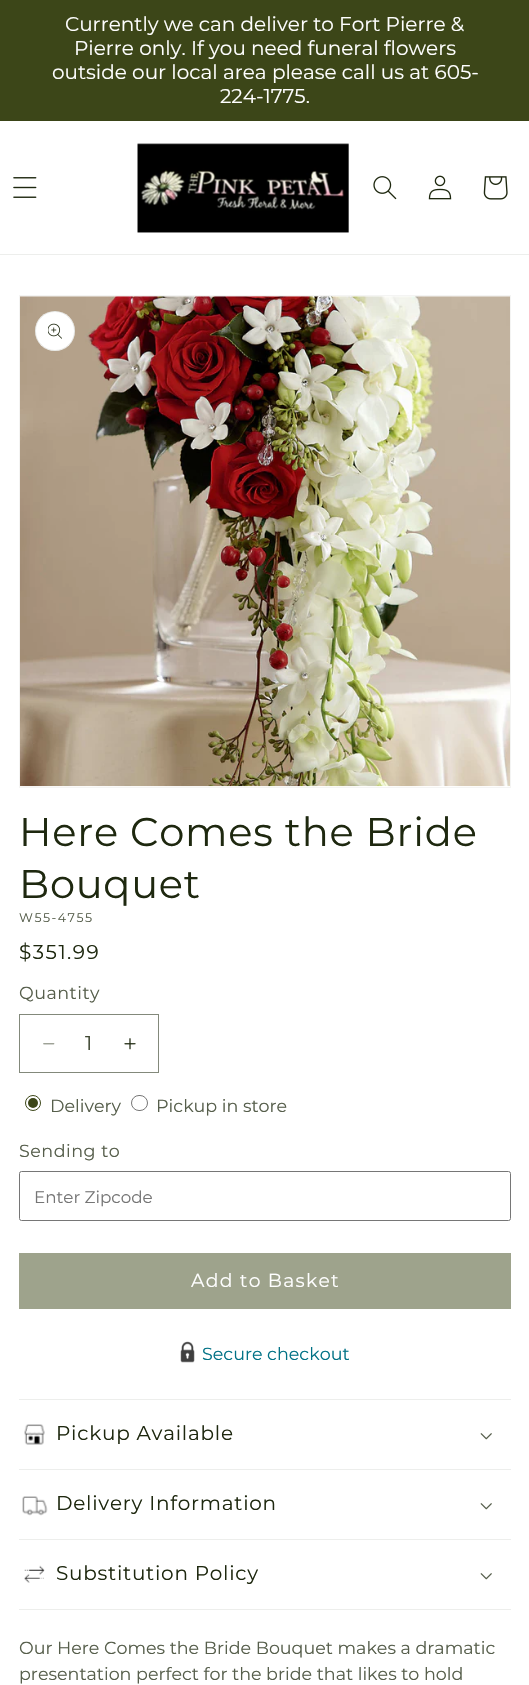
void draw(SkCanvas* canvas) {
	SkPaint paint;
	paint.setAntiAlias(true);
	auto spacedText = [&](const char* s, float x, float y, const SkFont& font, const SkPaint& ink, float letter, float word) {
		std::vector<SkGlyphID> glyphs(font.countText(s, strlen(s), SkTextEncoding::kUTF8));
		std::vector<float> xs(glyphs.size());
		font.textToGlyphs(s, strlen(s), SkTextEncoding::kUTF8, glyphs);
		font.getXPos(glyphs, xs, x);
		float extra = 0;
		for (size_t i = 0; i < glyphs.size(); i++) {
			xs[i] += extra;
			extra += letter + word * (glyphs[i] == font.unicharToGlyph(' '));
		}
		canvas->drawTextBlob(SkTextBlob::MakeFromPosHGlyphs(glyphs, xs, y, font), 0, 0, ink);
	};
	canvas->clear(0xffffffff);
	paint.setColor(0xff3c4618);
	canvas->drawRect(SkRect::MakeXYWH(0, 0, 529, 120), paint);
	paint.setColor(0xff3a4417);
	canvas->drawRect(SkRect::MakeXYWH(0, 120, 529, 1), paint);
	SkFont f1(fontMgr->matchFamilyStyle("Montserrat", SkFontStyle::Normal()), 20);
	f1.setSubpixel(true);
	paint.setColor(0xffffffff);
	canvas->drawString("Currently we can deliver to Fort Pierre &", 65, 31, f1, paint);
	canvas->drawString("Pierre only. If you need funeral flowers", 74, 55, f1, paint);
	canvas->drawString("outside our local area please call us at 605-", 52, 79, f1, paint);
	canvas->drawString("224-1775.", 220, 103, f1, paint);
	paint.setColor(0xffedeeec);
	canvas->drawRect(SkRect::MakeXYWH(0, 254, 529, 1), paint);
	canvas->drawImageRect(SkImages::DeferredFromEncodedData(SkData::MakeFromFileName("img1.png")), SkRect::MakeXYWH(13, 177, 24, 21), SkSamplingOptions());
	canvas->drawImageRect(SkImages::DeferredFromEncodedData(SkData::MakeFromFileName("img2.png")), SkRect::MakeXYWH(137, 143, 212, 90), SkSamplingOptions());
	canvas->drawImageRect(SkImages::DeferredFromEncodedData(SkData::MakeFromFileName("img3.png")), SkRect::MakeXYWH(373, 176, 24, 24), SkSamplingOptions());
	canvas->drawImageRect(SkImages::DeferredFromEncodedData(SkData::MakeFromFileName("img4.png")), SkRect::MakeXYWH(428, 175, 24, 25), SkSamplingOptions());
	canvas->drawImageRect(SkImages::DeferredFromEncodedData(SkData::MakeFromFileName("img5.png")), SkRect::MakeXYWH(483, 176, 25, 24), SkSamplingOptions());
	paint.setStroke(true);
	paint.setStrokeWidth(1);
	paint.setColor(0xfff4f4f3);
	canvas->drawRect(SkRect::MakeXYWH(19.5, 295.5, 491, 492), paint);
	canvas->drawImageRect(SkImages::DeferredFromEncodedData(SkData::MakeFromFileName("img6.png")), SkRect::MakeXYWH(20, 296, 490, 491), SkSamplingOptions());
	paint.setStroke(false);
	paint.setColor(0xffffffff);
	canvas->drawCircle(55, 331, 20, paint);
	paint.setStroke(true);
	paint.setColor(0x1a1e280f);
	canvas->drawCircle(55, 331, 19.5, paint);
	canvas->drawImageRect(SkImages::DeferredFromEncodedData(SkData::MakeFromFileName("img7.png")), SkRect::MakeXYWH(48, 323, 14, 16), SkSamplingOptions());
	SkFont f2(fontMgr->matchFamilyStyle("Montserrat", SkFontStyle::Normal()), 40);
	f2.setSubpixel(true);
	paint.setStroke(false);
	paint.setColor(0xff1e280f);
	spacedText("Here Comes the Bride", 19, 846, f2, paint, 0.75, 0);
	spacedText("Bouquet", 19, 898, f2, paint, 0.75, 0);
	SkFont f3(fontMgr->matchFamilyStyle("Montserrat", SkFontStyle::Normal()), 12.5);
	f3.setSubpixel(true);
	paint.setColor(0xff565e4b);
	spacedText("W55-4755", 19, 922, f3, paint, 1.5, 0);
	paint.setColor(0xff1e280f);
	spacedText("$351.99", 19, 959, f1, paint, 1.5, 0);
	SkFont f4(fontMgr->matchFamilyStyle("Montserrat", SkFontStyle::Normal()), 17.5);
	f4.setSubpixel(true);
	paint.setColor(0xff565e4b);
	spacedText("Quantity", 19, 999, f4, paint, 0.5, 0);
	canvas->drawImageRect(SkImages::DeferredFromEncodedData(SkData::MakeFromFileName("img8.png")), SkRect::MakeXYWH(43, 1043, 12, 2), SkSamplingOptions());
	canvas->drawImageRect(SkImages::DeferredFromEncodedData(SkData::MakeFromFileName("img9.png")), SkRect::MakeXYWH(124, 1038, 12, 12), SkSamplingOptions());
	paint.setStroke(true);
	paint.setColor(0xff83897b);
	canvas->drawRect(SkRect::MakeXYWH(19.5, 1014.5, 139, 58), paint);
	paint.setStroke(false);
	paint.setColor(0xff404833);
	canvas->drawString("1", 85, 1050, f1, paint);
	paint.setStroke(true);
	paint.setColor(0xff3c4618);
	canvas->drawCircle(33, 1103, 7.5, paint);
	paint.setStroke(false);
	canvas->drawCircle(33, 1103, 5, paint);
	paint.setColor(0xff565e4b);
	canvas->drawString("Delivery", 50, 1112, f4, paint);
	paint.setStroke(true);
	paint.setColor(0xff767676);
	canvas->drawRoundRect(SkRect::MakeXYWH(131.5, 1095.5, 16, 15), 7.5, 7.5, paint);
	paint.setStroke(false);
	paint.setColor(0xff565e4b);
	canvas->drawString("Pickup in store", 156, 1112, f4, paint);
	spacedText("Sending to", 19, 1157, f4, paint, 0.5, 0);
	paint.setStroke(true);
	paint.setColor(0xff767676);
	canvas->drawRoundRect(SkRect::MakeXYWH(19.5, 1171.5, 491, 49), 2, 2, paint);
	SkFont f5(fontMgr->matchFamilyStyle("Montserrat", SkFontStyle::Normal()), 16.75);
	f5.setSubpixel(true);
	paint.setStroke(false);
	paint.setColor(0xff757575);
	canvas->drawString("Enter Zipcode", 34, 1203, f5, paint);
	paint.setColor(0xff9ea38c);
	canvas->drawRect(SkRect::MakeXYWH(19, 1253, 492, 56), paint);
	SkFont f6(fontMgr->matchFamilyStyle("Montserrat", SkFontStyle::Normal()), 18.75);
	f6.setSubpixel(true);
	paint.setColor(0xffffffff);
	spacedText("Add to Basket", 191, 1287, f6, paint, 1.25, 0);
	canvas->drawImageRect(SkImages::DeferredFromEncodedData(SkData::MakeFromFileName("img10.png")), SkRect::MakeXYWH(180, 1341, 15, 22), SkSamplingOptions());
	paint.setColor(0xff007185);
	canvas->drawString("Secure checkout", 202, 1360, f4, paint);
	paint.setColor(0xffedeeec);
	canvas->drawRect(SkRect::MakeXYWH(19, 1399, 492, 1), paint);
	canvas->drawRect(SkRect::MakeXYWH(19, 1469, 492, 1), paint);
	canvas->drawImageRect(SkImages::DeferredFromEncodedData(SkData::MakeFromFileName("img11.png")), SkRect::MakeXYWH(24, 1424, 21, 21), SkSamplingOptions());
	paint.setColor(0xff1e280f);
	spacedText("Pickup Available", 56, 1440, f1, paint, 0.75, 0);
	canvas->drawImageRect(SkImages::DeferredFromEncodedData(SkData::MakeFromFileName("img12.png")), SkRect::MakeXYWH(480, 1433, 12, 7), SkSamplingOptions());
	paint.setColor(0xffedeeec);
	canvas->drawRect(SkRect::MakeXYWH(19, 1539, 492, 1), paint);
	canvas->drawImageRect(SkImages::DeferredFromEncodedData(SkData::MakeFromFileName("img13.png")), SkRect::MakeXYWH(22, 1496, 26, 20), SkSamplingOptions());
	paint.setColor(0xff1e280f);
	spacedText("Delivery Information", 56, 1510, f1, paint, 0.75, 0);
	canvas->drawImageRect(SkImages::DeferredFromEncodedData(SkData::MakeFromFileName("img12.png")), SkRect::MakeXYWH(480, 1503, 12, 7), SkSamplingOptions());
	paint.setColor(0xffedeeec);
	canvas->drawRect(SkRect::MakeXYWH(19, 1609, 492, 1), paint);
	canvas->drawImageRect(SkImages::DeferredFromEncodedData(SkData::MakeFromFileName("img14.png")), SkRect::MakeXYWH(24, 1565, 21, 18), SkSamplingOptions());
	paint.setColor(0xff1e280f);
	spacedText("Substitution Policy", 56, 1580, f1, paint, 0.75, 0);
	canvas->drawImageRect(SkImages::DeferredFromEncodedData(SkData::MakeFromFileName("img12.png")), SkRect::MakeXYWH(480, 1573, 12, 7), SkSamplingOptions());
	paint.setColor(0xff565e4b);
	canvas->drawString("Our Here Comes the Bride Bouquet makes a dramatic", 19, 1654, f4, paint);
	canvas->drawString("presentation perfect for the bride that likes to hold", 19, 1680, f4, paint);
}
